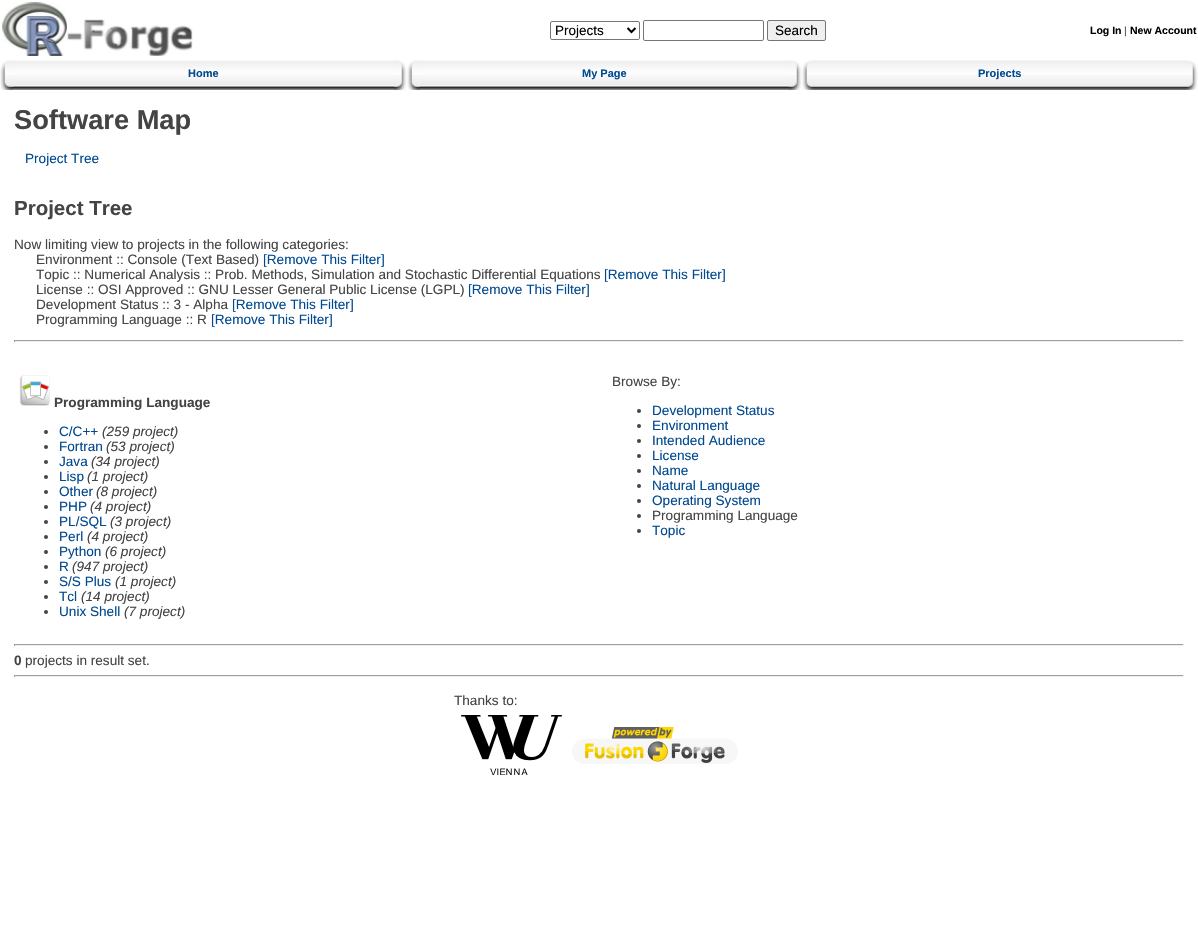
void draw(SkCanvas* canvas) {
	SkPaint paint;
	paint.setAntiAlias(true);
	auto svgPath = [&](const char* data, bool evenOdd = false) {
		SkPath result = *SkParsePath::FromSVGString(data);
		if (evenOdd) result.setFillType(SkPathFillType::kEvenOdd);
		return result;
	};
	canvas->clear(0xffffffff);
	canvas->drawImageRect(SkImages::DeferredFromEncodedData(SkData::MakeFromFileName("img1.png")), SkRect::MakeXYWH(2, 2, 191, 54), SkSamplingOptions());
	paint.setStroke(true);
	paint.setStrokeWidth(1);
	paint.setColor(0xff767676);
	canvas->drawRoundRect(SkRect::MakeXYWH(550.5, 21.5, 89, 18), 1.5, 1.5, paint);
	paint.setStrokeWidth(2);
	paint.setColor(0xff000000);
	canvas->drawPath(svgPath("M627.5 28L631.5 32L635.5 28"), paint);
	SkFont f1(fontMgr->matchFamilyStyle("Liberation Sans", SkFontStyle::Normal()), 13.5);
	f1.setSubpixel(true);
	paint.setStroke(false);
	canvas->drawString("Projects", 555, 35, f1, paint);
	paint.setStroke(true);
	paint.setStrokeWidth(1);
	paint.setColor(0xff767676);
	canvas->drawRoundRect(SkRect::MakeXYWH(643.5, 20.5, 120, 20), 1.5, 1.5, paint);
	paint.setStroke(false);
	paint.setColor(0xffefefef);
	canvas->drawRoundRect(SkRect::MakeXYWH(767.5, 20.5, 58, 20), 1.5, 1.5, paint);
	paint.setStroke(true);
	paint.setColor(0xff767676);
	canvas->drawRoundRect(SkRect::MakeXYWH(767.5, 20.5, 58, 20), 1.5, 1.5, paint);
	paint.setStroke(false);
	paint.setColor(0xff000000);
	canvas->drawString("Search", 775, 35, f1, paint);
	SkFont f2(fontMgr->matchFamilyStyle("Liberation Sans", SkFontStyle::Bold()), 10.5);
	f2.setSubpixel(true);
	canvas->drawString("Log In", 1090, 34, f2, paint);
	SkFont f3(fontMgr->matchFamilyStyle("Liberation Sans", SkFontStyle::Normal()), 10.5);
	f3.setSubpixel(true);
	paint.setColor(0xff444444);
	canvas->drawString("|", 1124, 34, f3, paint);
	paint.setColor(0xff000000);
	canvas->drawString("New Account", 1130, 34, f2, paint);
	canvas->drawImageRect(SkImages::DeferredFromEncodedData(SkData::MakeFromFileName("img2.png")), SkRect::MakeXYWH(0, 60, 13, 30), SkSamplingOptions());
	canvas->drawImageRect(SkImages::DeferredFromEncodedData(SkData::MakeFromFileName("img3.png")), SkRect::MakeXYWH(13, 60, 381, 30), SkSamplingOptions());
	SkFont f4(fontMgr->matchFamilyStyle("Liberation Sans", SkFontStyle::Bold()), 11);
	f4.setSubpixel(true);
	paint.setColor(0xff014990);
	canvas->drawString("Home", 188, 77, f4, paint);
	canvas->drawImageRect(SkImages::DeferredFromEncodedData(SkData::MakeFromFileName("img4.png")), SkRect::MakeXYWH(394, 60, 13, 30), SkSamplingOptions());
	canvas->drawImageRect(SkImages::DeferredFromEncodedData(SkData::MakeFromFileName("img2.png")), SkRect::MakeXYWH(407, 60, 13, 30), SkSamplingOptions());
	canvas->drawImageRect(SkImages::DeferredFromEncodedData(SkData::MakeFromFileName("img5.png")), SkRect::MakeXYWH(420, 60, 369, 30), SkSamplingOptions());
	canvas->drawString("My Page", 582, 77, f4, paint);
	canvas->drawImageRect(SkImages::DeferredFromEncodedData(SkData::MakeFromFileName("img4.png")), SkRect::MakeXYWH(789, 60, 13, 30), SkSamplingOptions());
	canvas->drawImageRect(SkImages::DeferredFromEncodedData(SkData::MakeFromFileName("img2.png")), SkRect::MakeXYWH(802, 60, 13, 30), SkSamplingOptions());
	canvas->drawImageRect(SkImages::DeferredFromEncodedData(SkData::MakeFromFileName("img6.png")), SkRect::MakeXYWH(815, 60, 370, 30), SkSamplingOptions());
	canvas->drawString("Projects", 978, 77, f4, paint);
	canvas->drawImageRect(SkImages::DeferredFromEncodedData(SkData::MakeFromFileName("img4.png")), SkRect::MakeXYWH(1185, 60, 13, 30), SkSamplingOptions());
	SkFont f5(fontMgr->matchFamilyStyle("Liberation Sans", SkFontStyle::Bold()), 27.25);
	f5.setSubpixel(true);
	paint.setColor(0xff444444);
	canvas->drawString("Software Map", 14, 129, f5, paint);
	SkFont f6(fontMgr->matchFamilyStyle("Liberation Sans", SkFontStyle::Normal()), 13.6);
	f6.setSubpixel(true);
	paint.setColor(0xff014990);
	canvas->drawString("Project Tree", 25, 163, f6, paint);
	SkFont f7(fontMgr->matchFamilyStyle("Liberation Sans", SkFontStyle::Bold()), 20.5);
	f7.setSubpixel(true);
	paint.setColor(0xff444444);
	canvas->drawString("Project Tree", 14, 215, f7, paint);
	canvas->drawString("Now limiting view to projects in the following categories:", 14, 249, f6, paint);
	canvas->drawString("Environment :: Console (Text Based)", 36, 264, f6, paint);
	paint.setColor(0xff014990);
	canvas->drawString("[Remove This Filter]", 263, 264, f6, paint);
	paint.setColor(0xff444444);
	canvas->drawString("Topic :: Numerical Analysis :: Prob. Methods, Simulation and Stochastic Differential Equations", 36, 279, f6, paint);
	paint.setColor(0xff014990);
	canvas->drawString("[Remove This Filter]", 604, 279, f6, paint);
	paint.setColor(0xff444444);
	canvas->drawString("License :: OSI Approved :: GNU Lesser General Public License (LGPL)", 36, 294, f6, paint);
	paint.setColor(0xff014990);
	canvas->drawString("[Remove This Filter]", 468, 294, f6, paint);
	paint.setColor(0xff444444);
	canvas->drawString("Development Status :: 3 - Alpha", 36, 309, f6, paint);
	paint.setColor(0xff014990);
	canvas->drawString("[Remove This Filter]", 232, 309, f6, paint);
	paint.setColor(0xff444444);
	canvas->drawString("Programming Language :: R", 36, 324, f6, paint);
	paint.setColor(0xff014990);
	canvas->drawString("[Remove This Filter]", 211, 324, f6, paint);
	paint.setColor(0xff9f9f9f);
	canvas->drawRect(SkRect::MakeXYWH(14, 340, 1170, 1), paint);
	paint.setColor(0xffeeeeee);
	canvas->drawRect(SkRect::MakeXYWH(1183, 340, 1, 2), paint);
	canvas->drawRect(SkRect::MakeXYWH(14, 341, 1170, 1), paint);
	paint.setColor(0xff9f9f9f);
	canvas->drawRect(SkRect::MakeXYWH(14, 340, 1, 2), paint);
	canvas->drawImageRect(SkImages::DeferredFromEncodedData(SkData::MakeFromFileName("img7.png")), SkRect::MakeXYWH(19, 375, 31, 31), SkSamplingOptions());
	SkFont f8(fontMgr->matchFamilyStyle("Liberation Sans", SkFontStyle::Bold()), 13.6);
	f8.setSubpixel(true);
	paint.setColor(0xff444444);
	canvas->drawString("Programming Language", 54, 407, f8, paint);
	canvas->drawCircle(46, 432, 2, paint);
	paint.setColor(0xff014990);
	canvas->drawString("C/C++", 59, 436, f6, paint);
	SkFont f9(fontMgr->matchFamilyStyle("Liberation Sans", SkFontStyle::Italic()), 13.6);
	f9.setSubpixel(true);
	paint.setColor(0xff444444);
	canvas->drawString("(259 project)", 102, 436, f9, paint);
	canvas->drawCircle(46, 447, 2, paint);
	paint.setColor(0xff014990);
	canvas->drawString("Fortran", 59, 451, f6, paint);
	paint.setColor(0xff444444);
	canvas->drawString("(53 project)", 106, 451, f9, paint);
	canvas->drawCircle(46, 462, 2, paint);
	paint.setColor(0xff014990);
	canvas->drawString("Java", 59, 466, f6, paint);
	paint.setColor(0xff444444);
	canvas->drawString("(34 project)", 91, 466, f9, paint);
	canvas->drawCircle(46, 477, 2, paint);
	paint.setColor(0xff014990);
	canvas->drawString("Lisp", 59, 481, f6, paint);
	paint.setColor(0xff444444);
	canvas->drawString("(1 project)", 87, 481, f9, paint);
	canvas->drawCircle(46, 492, 2, paint);
	paint.setColor(0xff014990);
	canvas->drawString("Other", 59, 496, f6, paint);
	paint.setColor(0xff444444);
	canvas->drawString("(8 project)", 96, 496, f9, paint);
	canvas->drawCircle(46, 507, 2, paint);
	paint.setColor(0xff014990);
	canvas->drawString("PHP", 59, 511, f6, paint);
	paint.setColor(0xff444444);
	canvas->drawString("(4 project)", 90, 511, f9, paint);
	canvas->drawCircle(46, 522, 2, paint);
	paint.setColor(0xff014990);
	canvas->drawString("PL/SQL", 59, 526, f6, paint);
	paint.setColor(0xff444444);
	canvas->drawString("(3 project)", 110, 526, f9, paint);
	canvas->drawCircle(46, 537, 2, paint);
	paint.setColor(0xff014990);
	canvas->drawString("Perl", 59, 541, f6, paint);
	paint.setColor(0xff444444);
	canvas->drawString("(4 project)", 87, 541, f9, paint);
	canvas->drawCircle(46, 552, 2, paint);
	paint.setColor(0xff014990);
	canvas->drawString("Python", 59, 556, f6, paint);
	paint.setColor(0xff444444);
	canvas->drawString("(6 project)", 105, 556, f9, paint);
	canvas->drawCircle(46, 567, 2, paint);
	paint.setColor(0xff014990);
	canvas->drawString("R", 59, 571, f6, paint);
	paint.setColor(0xff444444);
	canvas->drawString("(947 project)", 72, 571, f9, paint);
	canvas->drawCircle(46, 582, 2, paint);
	paint.setColor(0xff014990);
	canvas->drawString("S/S Plus", 59, 586, f6, paint);
	paint.setColor(0xff444444);
	canvas->drawString("(1 project)", 115, 586, f9, paint);
	canvas->drawCircle(46, 597, 2, paint);
	paint.setColor(0xff014990);
	canvas->drawString("Tcl", 59, 601, f6, paint);
	paint.setColor(0xff444444);
	canvas->drawString("(14 project)", 81, 601, f9, paint);
	canvas->drawCircle(46, 612, 2, paint);
	paint.setColor(0xff014990);
	canvas->drawString("Unix Shell", 59, 616, f6, paint);
	paint.setColor(0xff444444);
	canvas->drawString("(7 project)", 124, 616, f9, paint);
	canvas->drawString("Browse By:", 612, 386, f6, paint);
	canvas->drawCircle(639, 411, 2, paint);
	paint.setColor(0xff014990);
	canvas->drawString("Development Status", 652, 415, f6, paint);
	paint.setColor(0xff444444);
	canvas->drawCircle(639, 426, 2, paint);
	paint.setColor(0xff014990);
	canvas->drawString("Environment", 652, 430, f6, paint);
	paint.setColor(0xff444444);
	canvas->drawCircle(639, 441, 2, paint);
	paint.setColor(0xff014990);
	canvas->drawString("Intended Audience", 652, 445, f6, paint);
	paint.setColor(0xff444444);
	canvas->drawCircle(639, 456, 2, paint);
	paint.setColor(0xff014990);
	canvas->drawString("License", 652, 460, f6, paint);
	paint.setColor(0xff444444);
	canvas->drawCircle(639, 471, 2, paint);
	paint.setColor(0xff014990);
	canvas->drawString("Name", 652, 475, f6, paint);
	paint.setColor(0xff444444);
	canvas->drawCircle(639, 486, 2, paint);
	paint.setColor(0xff014990);
	canvas->drawString("Natural Language", 652, 490, f6, paint);
	paint.setColor(0xff444444);
	canvas->drawCircle(639, 501, 2, paint);
	paint.setColor(0xff014990);
	canvas->drawString("Operating System", 652, 505, f6, paint);
	paint.setColor(0xff444444);
	canvas->drawCircle(639, 516, 2, paint);
	canvas->drawString("Programming Language", 652, 520, f6, paint);
	canvas->drawCircle(639, 531, 2, paint);
	paint.setColor(0xff014990);
	canvas->drawString("Topic", 652, 535, f6, paint);
	paint.setColor(0xff9f9f9f);
	canvas->drawRect(SkRect::MakeXYWH(14, 644, 1170, 1), paint);
	paint.setColor(0xffeeeeee);
	canvas->drawRect(SkRect::MakeXYWH(1183, 644, 1, 2), paint);
	canvas->drawRect(SkRect::MakeXYWH(14, 645, 1170, 1), paint);
	paint.setColor(0xff9f9f9f);
	canvas->drawRect(SkRect::MakeXYWH(14, 644, 1, 2), paint);
	paint.setColor(0xff444444);
	canvas->drawString("0", 14, 665, f8, paint);
	canvas->drawString("projects in result set.", 25, 665, f6, paint);
	paint.setColor(0xff9f9f9f);
	canvas->drawRect(SkRect::MakeXYWH(14, 675, 1170, 1), paint);
	paint.setColor(0xffeeeeee);
	canvas->drawRect(SkRect::MakeXYWH(1183, 675, 1, 2), paint);
	canvas->drawRect(SkRect::MakeXYWH(14, 676, 1170, 1), paint);
	paint.setColor(0xff9f9f9f);
	canvas->drawRect(SkRect::MakeXYWH(14, 675, 1, 2), paint);
	paint.setColor(0xff444444);
	canvas->drawString("Thanks to:", 454, 705, f6, paint);
	canvas->drawImageRect(SkImages::DeferredFromEncodedData(SkData::MakeFromFileName("img8.png")), SkRect::MakeXYWH(461, 715, 101, 60), SkSamplingOptions());
	canvas->drawImageRect(SkImages::DeferredFromEncodedData(SkData::MakeFromFileName("img9.png")), SkRect::MakeXYWH(572, 727, 166, 37), SkSamplingOptions());
}
